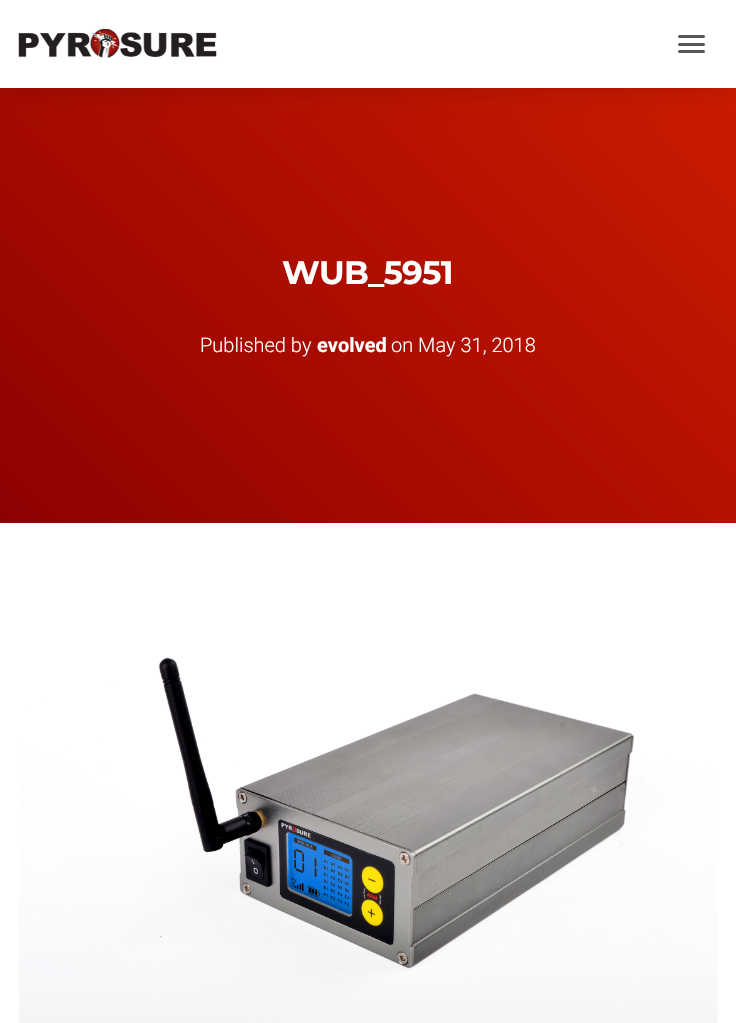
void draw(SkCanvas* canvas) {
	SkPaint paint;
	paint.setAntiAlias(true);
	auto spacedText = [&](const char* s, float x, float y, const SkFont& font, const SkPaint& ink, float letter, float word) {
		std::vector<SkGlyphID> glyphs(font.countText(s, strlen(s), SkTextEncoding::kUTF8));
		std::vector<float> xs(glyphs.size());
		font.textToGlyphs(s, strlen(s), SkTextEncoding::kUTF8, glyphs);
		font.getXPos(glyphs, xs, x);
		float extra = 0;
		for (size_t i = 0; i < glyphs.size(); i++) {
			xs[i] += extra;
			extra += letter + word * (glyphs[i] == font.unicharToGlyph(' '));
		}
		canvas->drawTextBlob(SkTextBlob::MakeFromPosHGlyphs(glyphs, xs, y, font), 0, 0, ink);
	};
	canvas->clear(0xffffffff);
	{
		const SkColor colors[] = {0xff8e0101, 0xffd01d00};
		const float stops[] = {0, 1};
		const SkPoint ends[] = {{53, 576}, {683, -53}};
		paint.setShader(SkGradientShader::MakeLinear(ends, colors, stops, 2, SkTileMode::kClamp));
		paint.setAlpha(255);
	}
	canvas->drawRect(SkRect::MakeXYWH(0, 88, 736, 435), paint);
	paint.setShader(nullptr);
	paint.setColor(0x26000000);
	paint.setMaskFilter(SkMaskFilter::MakeBlur(kNormal_SkBlurStyle, 12.5));
	canvas->drawRect(SkRect::MakeXYWH(0, 0, 736, 88), paint);
	paint.setMaskFilter(nullptr);
	paint.setColor(0xffffffff);
	canvas->drawRect(SkRect::MakeXYWH(0, 0, 736, 88), paint);
	canvas->drawImageRect(SkImages::DeferredFromEncodedData(SkData::MakeFromFileName("img1.png")), SkRect::MakeXYWH(18, 28, 199, 30), SkSamplingOptions());
	paint.setColor(0xff555555);
	canvas->drawRoundRect(SkRect::MakeXYWH(678, 35, 27, 3), 1.5, 1.5, paint);
	canvas->drawRoundRect(SkRect::MakeXYWH(678, 43, 27, 3), 1.5, 1.5, paint);
	canvas->drawRoundRect(SkRect::MakeXYWH(678, 50, 27, 3), 1.5, 1.5, paint);
	SkFont f1(fontMgr->matchFamilyStyle("Montserrat", SkFontStyle::Bold()), 32.5);
	f1.setSubpixel(true);
	paint.setColor(0xffffffff);
	spacedText("WUB_5951", 282, 284, f1, paint, -0.75, 0);
	SkFont f2(fontMgr->matchFamilyStyle("Roboto", SkFontStyle(300, SkFontStyle::kNormal_Width, SkFontStyle::kUpright_Slant)), 20);
	f2.setSubpixel(true);
	canvas->drawString("Published by", 200, 352, f2, paint);
	SkFont f3(fontMgr->matchFamilyStyle("Roboto", SkFontStyle::Bold()), 20);
	f3.setSubpixel(true);
	canvas->drawString("evolved", 317, 352, f3, paint);
	canvas->drawString("on May 31, 2018", 391, 352, f2, paint);
	canvas->drawImageRect(SkImages::DeferredFromEncodedData(SkData::MakeFromFileName("img2.png")), SkRect::MakeXYWH(19, 657, 699, 366), SkSamplingOptions());
}
